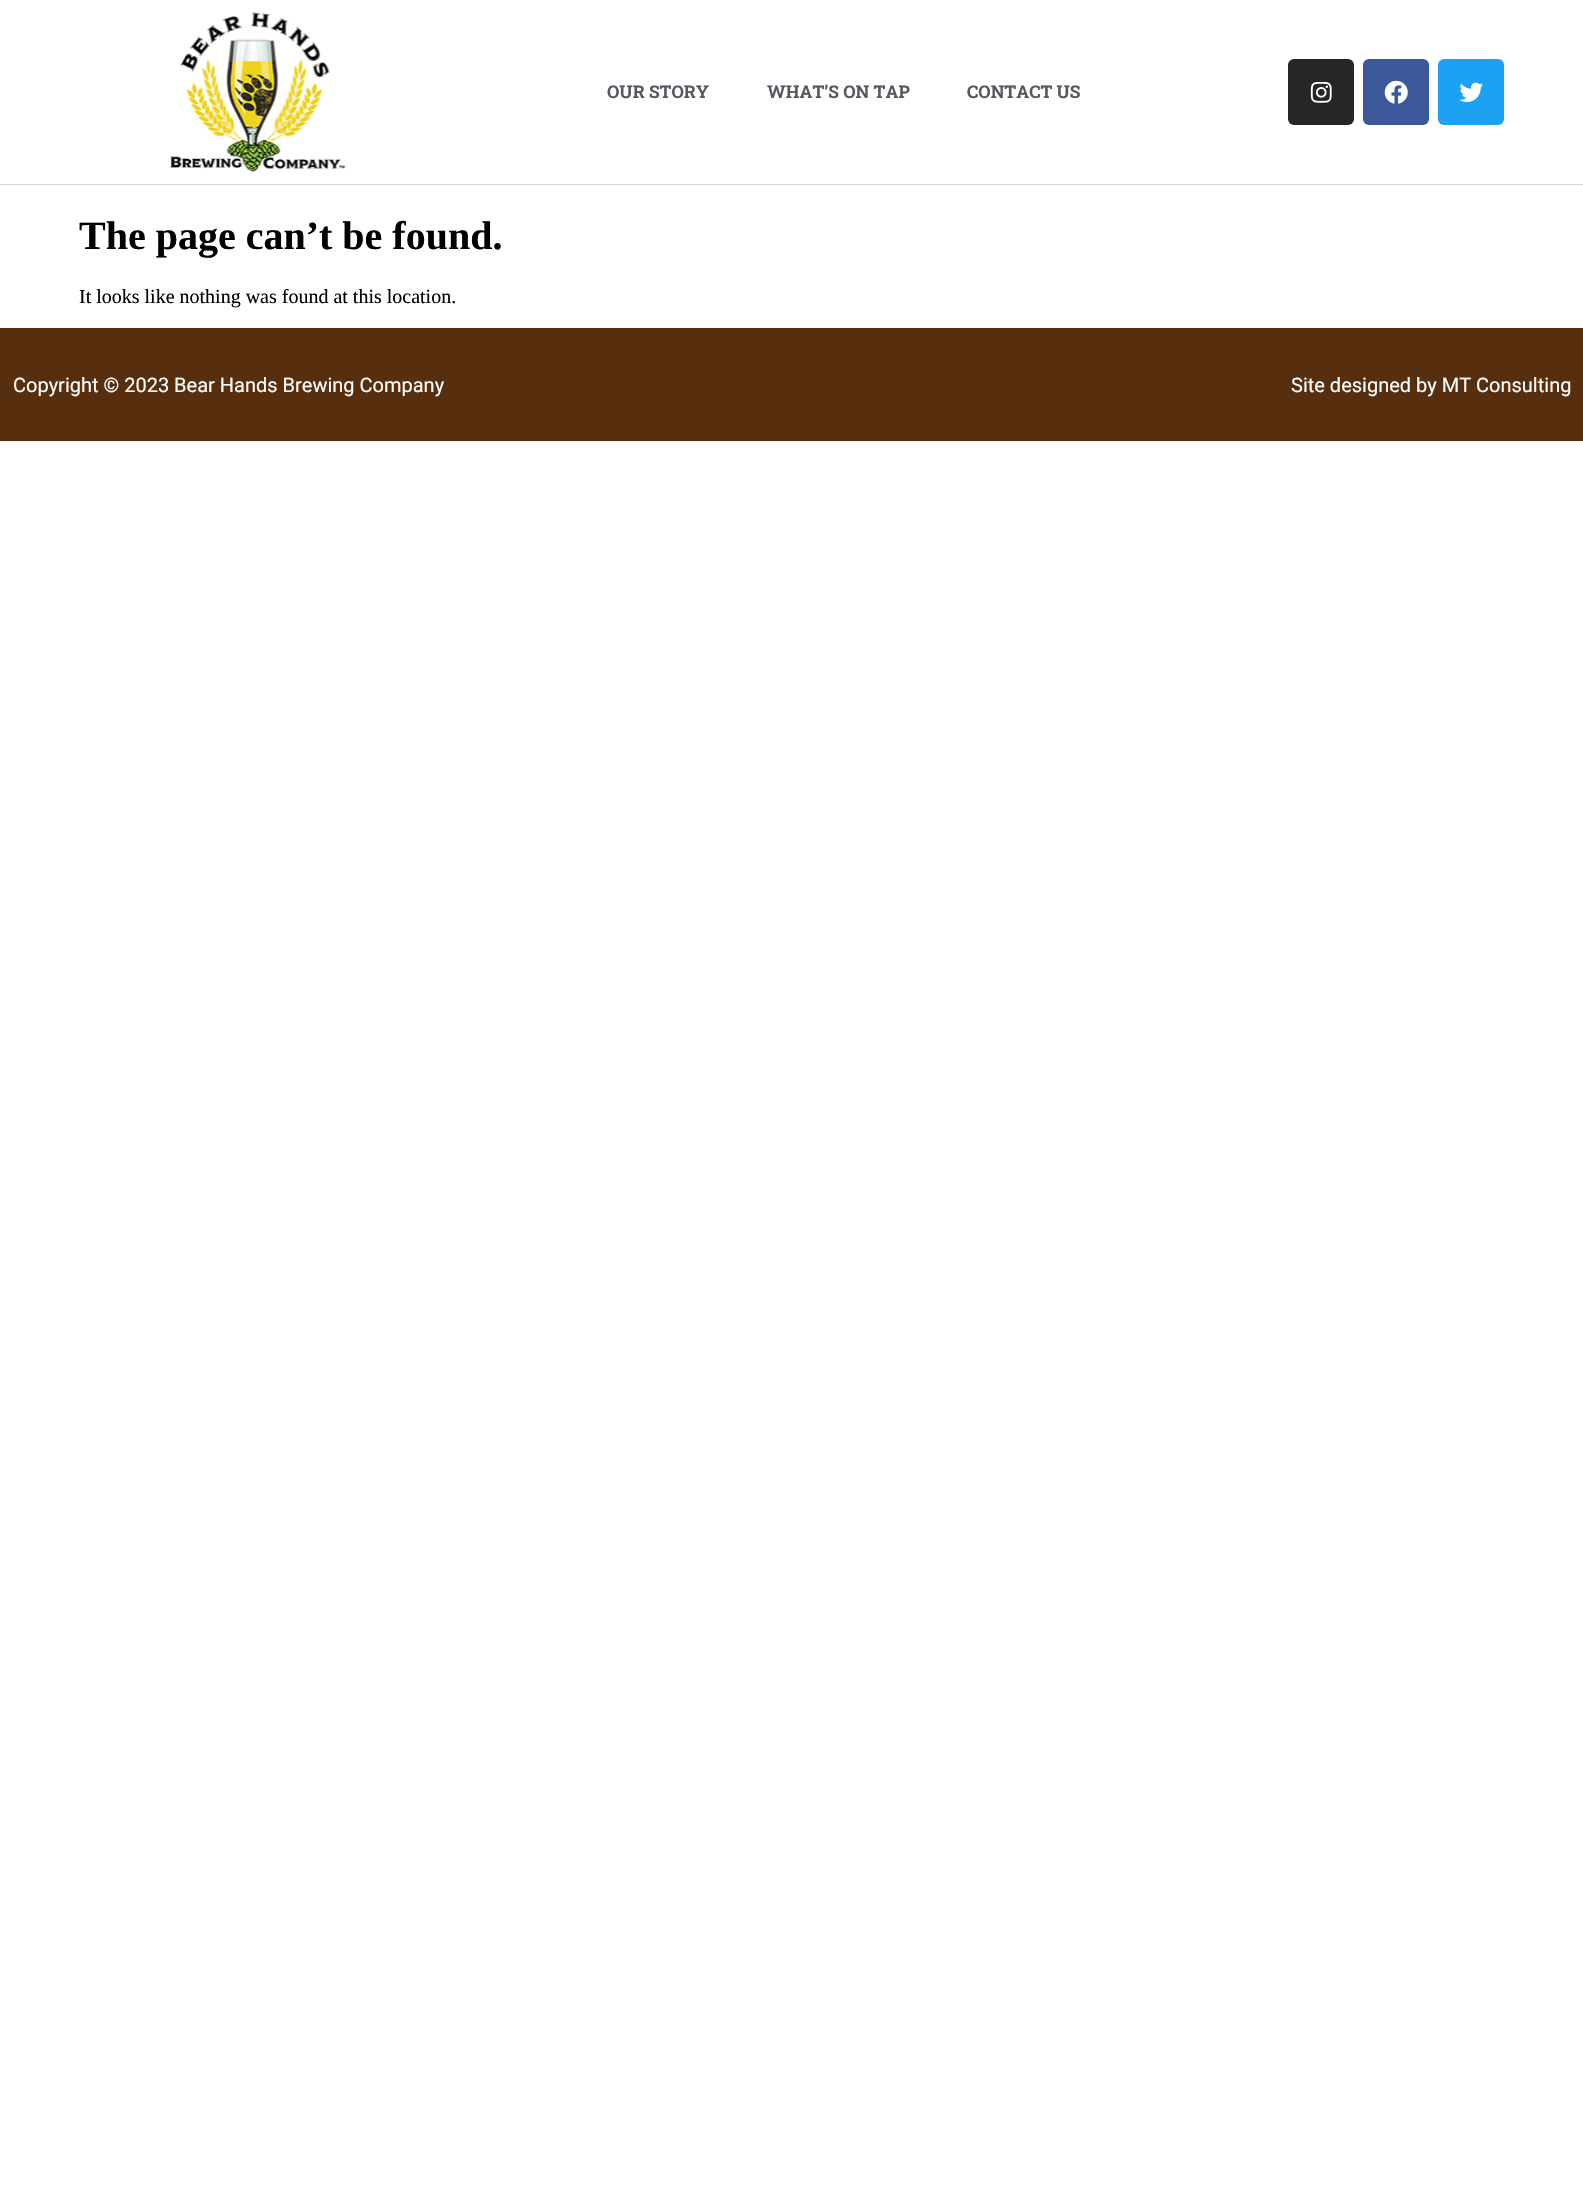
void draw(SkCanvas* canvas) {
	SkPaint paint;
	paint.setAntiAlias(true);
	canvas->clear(0xffffffff);
	paint.setColor(0xffd3d3d3);
	canvas->drawRect(SkRect::MakeXYWH(0, 184, 1583, 1), paint);
	canvas->drawImageRect(SkImages::DeferredFromEncodedData(SkData::MakeFromFileName("img1.png")), SkRect::MakeXYWH(170, 12, 175, 160), SkSamplingOptions());
	SkFont f1(fontMgr->matchFamilyStyle("Roboto Slab", SkFontStyle::Bold()), 17.5);
	f1.setSubpixel(true);
	paint.setColor(0xff54595f);
	canvas->drawString("OUR STORY", 607, 98, f1, paint);
	canvas->drawString("WHAT’S ON TAP", 767, 98, f1, paint);
	canvas->drawString("CONTACT US", 967, 98, f1, paint);
	paint.setColor(0xff262626);
	canvas->drawRoundRect(SkRect::MakeXYWH(1288, 59, 66, 66), 6, 6, paint);
	canvas->drawImageRect(SkImages::DeferredFromEncodedData(SkData::MakeFromFileName("img2.png")), SkRect::MakeXYWH(1310, 81, 22, 22), SkSamplingOptions());
	paint.setColor(0xff3b5998);
	canvas->drawRoundRect(SkRect::MakeXYWH(1363, 59, 66, 66), 6, 6, paint);
	canvas->drawImageRect(SkImages::DeferredFromEncodedData(SkData::MakeFromFileName("img3.png")), SkRect::MakeXYWH(1384, 80, 24, 24), SkSamplingOptions());
	paint.setColor(0xff1da1f2);
	canvas->drawRoundRect(SkRect::MakeXYWH(1438, 59, 66, 66), 6, 6, paint);
	canvas->drawImageRect(SkImages::DeferredFromEncodedData(SkData::MakeFromFileName("img4.png")), SkRect::MakeXYWH(1459, 82, 24, 20), SkSamplingOptions());
	SkFont f2(fontMgr->matchFamilyStyle("Liberation Serif", SkFontStyle::Bold()), 40);
	f2.setSubpixel(true);
	paint.setColor(0xff000000);
	canvas->drawString("The page can’t be found.", 79, 249, f2, paint);
	SkFont f3(fontMgr->matchFamilyStyle("Liberation Serif", SkFontStyle::Normal()), 20);
	f3.setSubpixel(true);
	canvas->drawString("It looks like nothing was found at this location.", 79, 303, f3, paint);
	paint.setColor(0xff572f0f);
	canvas->drawRect(SkRect::MakeXYWH(0, 328, 1583, 113), paint);
	SkFont f4(fontMgr->matchFamilyStyle("Roboto", SkFontStyle::Normal()), 20);
	f4.setSubpixel(true);
	paint.setColor(0xffffffff);
	canvas->drawString("Copyright © 2023 Bear Hands Brewing Company", 13, 392, f4, paint);
	canvas->drawString("Site designed by MT Consulting", 1291, 392, f4, paint);
}
